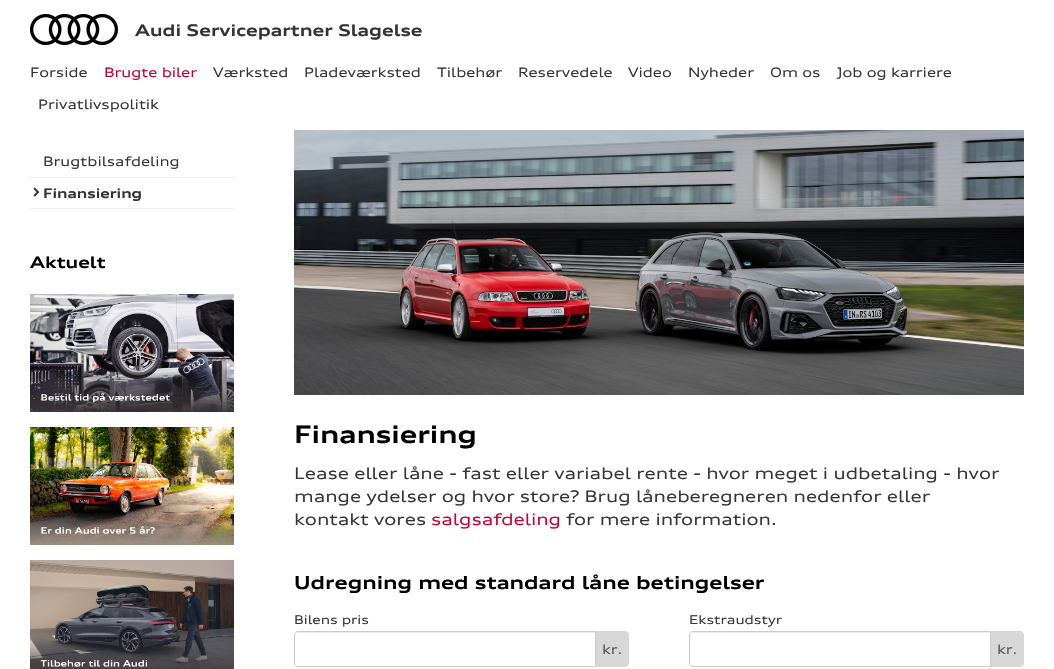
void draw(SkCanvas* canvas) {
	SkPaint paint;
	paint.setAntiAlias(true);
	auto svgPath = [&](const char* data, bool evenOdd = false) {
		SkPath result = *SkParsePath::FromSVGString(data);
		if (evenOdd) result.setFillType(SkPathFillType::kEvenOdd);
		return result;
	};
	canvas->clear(0xffffffff);
	canvas->drawImageRect(SkImages::DeferredFromEncodedData(SkData::MakeFromFileName("img1.png")), SkRect::MakeXYWH(30, 14, 88, 31), SkSamplingOptions());
	SkFont f1(fontMgr->matchFamilyStyle("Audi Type", SkFontStyle::Bold()), 16);
	f1.setSubpixel(true);
	paint.setColor(0xff333333);
	canvas->drawString("Audi Servicepartner Slagelse", 135, 36, f1, paint);
	paint.setColor(0xffeeeeee);
	canvas->drawRect(SkRect::MakeXYWH(30, 208, 204, 1), paint);
	SkFont f2(fontMgr->matchFamilyStyle("Audi Type", SkFontStyle::Normal()), 13);
	f2.setSubpixel(true);
	paint.setColor(0xff333333);
	canvas->drawString("Brugtbilsafdeling", 43, 166, f2, paint);
	paint.setColor(0xffeeeeee);
	canvas->drawRect(SkRect::MakeXYWH(30, 177, 204, 1), paint);
	canvas->drawImageRect(SkImages::DeferredFromEncodedData(SkData::MakeFromFileName("img2.png")), SkRect::MakeXYWH(33, 187, 7, 10), SkSamplingOptions());
	SkFont f3(fontMgr->matchFamilyStyle("Audi Type", SkFontStyle::Bold()), 13);
	f3.setSubpixel(true);
	paint.setColor(0xff333333);
	canvas->drawString("Finansiering", 43, 198, f3, paint);
	paint.setColor(0xff000000);
	canvas->drawString("Aktuelt", 30, 268, f1, paint);
	canvas->drawImageRect(SkImages::DeferredFromEncodedData(SkData::MakeFromFileName("img3.png")), SkRect::MakeXYWH(30, 294, 204, 118), SkSamplingOptions());
	canvas->drawImageRect(SkImages::DeferredFromEncodedData(SkData::MakeFromFileName("img4.png")), SkRect::MakeXYWH(30, 427, 204, 118), SkSamplingOptions());
	canvas->drawImageRect(SkImages::DeferredFromEncodedData(SkData::MakeFromFileName("img5.png")), SkRect::MakeXYWH(30, 560, 204, 109), SkSamplingOptions());
	canvas->drawImageRect(SkImages::DeferredFromEncodedData(SkData::MakeFromFileName("img6.png")), SkRect::MakeXYWH(294, 130, 730, 265), SkSamplingOptions());
	SkFont f4(fontMgr->matchFamilyStyle("Audi Type", SkFontStyle::Bold()), 24);
	f4.setSubpixel(true);
	canvas->drawString("Finansiering", 294, 443, f4, paint);
	SkFont f5(fontMgr->matchFamilyStyle("Audi Type", SkFontStyle::Normal()), 16);
	f5.setSubpixel(true);
	paint.setColor(0xff333333);
	canvas->drawString("Lease eller låne - fast eller variabel rente - hvor meget i udbetaling - hvor", 294, 479, f5, paint);
	canvas->drawString("mange ydelser og hvor store? Brug låneberegneren nedenfor eller", 294, 502, f5, paint);
	canvas->drawString("kontakt vores", 294, 525, f5, paint);
	paint.setColor(0xffcc0033);
	canvas->drawString("salgsafdeling", 431, 525, f5, paint);
	paint.setColor(0xff333333);
	canvas->drawString("for mere information.", 566, 525, f5, paint);
	SkFont f6(fontMgr->matchFamilyStyle("Audi Type", SkFontStyle::Bold()), 18);
	f6.setSubpixel(true);
	paint.setColor(0xff000000);
	canvas->drawString("Udregning med standard låne betingelser", 294, 589, f6, paint);
	SkFont f7(fontMgr->matchFamilyStyle("Audi Type", SkFontStyle::Normal()), 12);
	f7.setSubpixel(true);
	paint.setColor(0xff333333);
	canvas->drawString("Bilens pris", 294, 624, f7, paint);
	paint.setColor(0xffececec);
	canvas->drawPath(svgPath("M298 633H595V632H298C296 632 295 634 295 636C295 634 296 633 298 633Z"), paint);
	paint.setStroke(true);
	paint.setStrokeWidth(1);
	paint.setColor(0xffcccccc);
	canvas->drawPath(svgPath("M298 631.5H595.5V666.5H298C296 666.5 294.5 665 294.5 663V635C294.5 633 296 631.5 298 631.5Z"), paint);
	paint.setStroke(false);
	paint.setColor(0xffd7d7d7);
	canvas->drawPath(svgPath("M596 631H625C627 631 629 633 629 635V663C629 665 627 667 625 667H596Z"), paint);
	paint.setColor(0xff555555);
	canvas->drawString("kr.", 602, 654, f2, paint);
	paint.setColor(0xff333333);
	canvas->drawString("Ekstraudstyr", 689, 624, f7, paint);
	paint.setColor(0xffececec);
	canvas->drawPath(svgPath("M693 633H990V632H693C691 632 690 634 690 636C690 634 691 633 693 633Z"), paint);
	paint.setStroke(true);
	paint.setColor(0xffcccccc);
	canvas->drawPath(svgPath("M693 631.5H990.5V666.5H693C691 666.5 689.5 665 689.5 663V635C689.5 633 691 631.5 693 631.5Z"), paint);
	paint.setStroke(false);
	paint.setColor(0xffd7d7d7);
	canvas->drawPath(svgPath("M991 631H1020C1022 631 1024 633 1024 635V663C1024 665 1022 667 1020 667H991Z"), paint);
	paint.setColor(0xff555555);
	canvas->drawString("kr.", 997, 654, f2, paint);
	paint.setColor(0xff333333);
	canvas->drawString("Forside", 30, 77, f2, paint);
	paint.setColor(0xffc20030);
	canvas->drawString("Brugte biler", 104, 77, f2, paint);
	paint.setColor(0xff333333);
	canvas->drawString("Værksted", 213, 77, f2, paint);
	canvas->drawString("Pladeværksted", 304, 77, f2, paint);
	canvas->drawString("Tilbehør", 437, 77, f2, paint);
	canvas->drawString("Reservedele", 518, 77, f2, paint);
	canvas->drawString("Video", 628, 77, f2, paint);
	canvas->drawString("Nyheder", 688, 77, f2, paint);
	canvas->drawString("Om os", 770, 77, f2, paint);
	canvas->drawString("Job og karriere", 837, 77, f2, paint);
	canvas->drawString("Privatlivspolitik", 38, 109, f2, paint);
}
